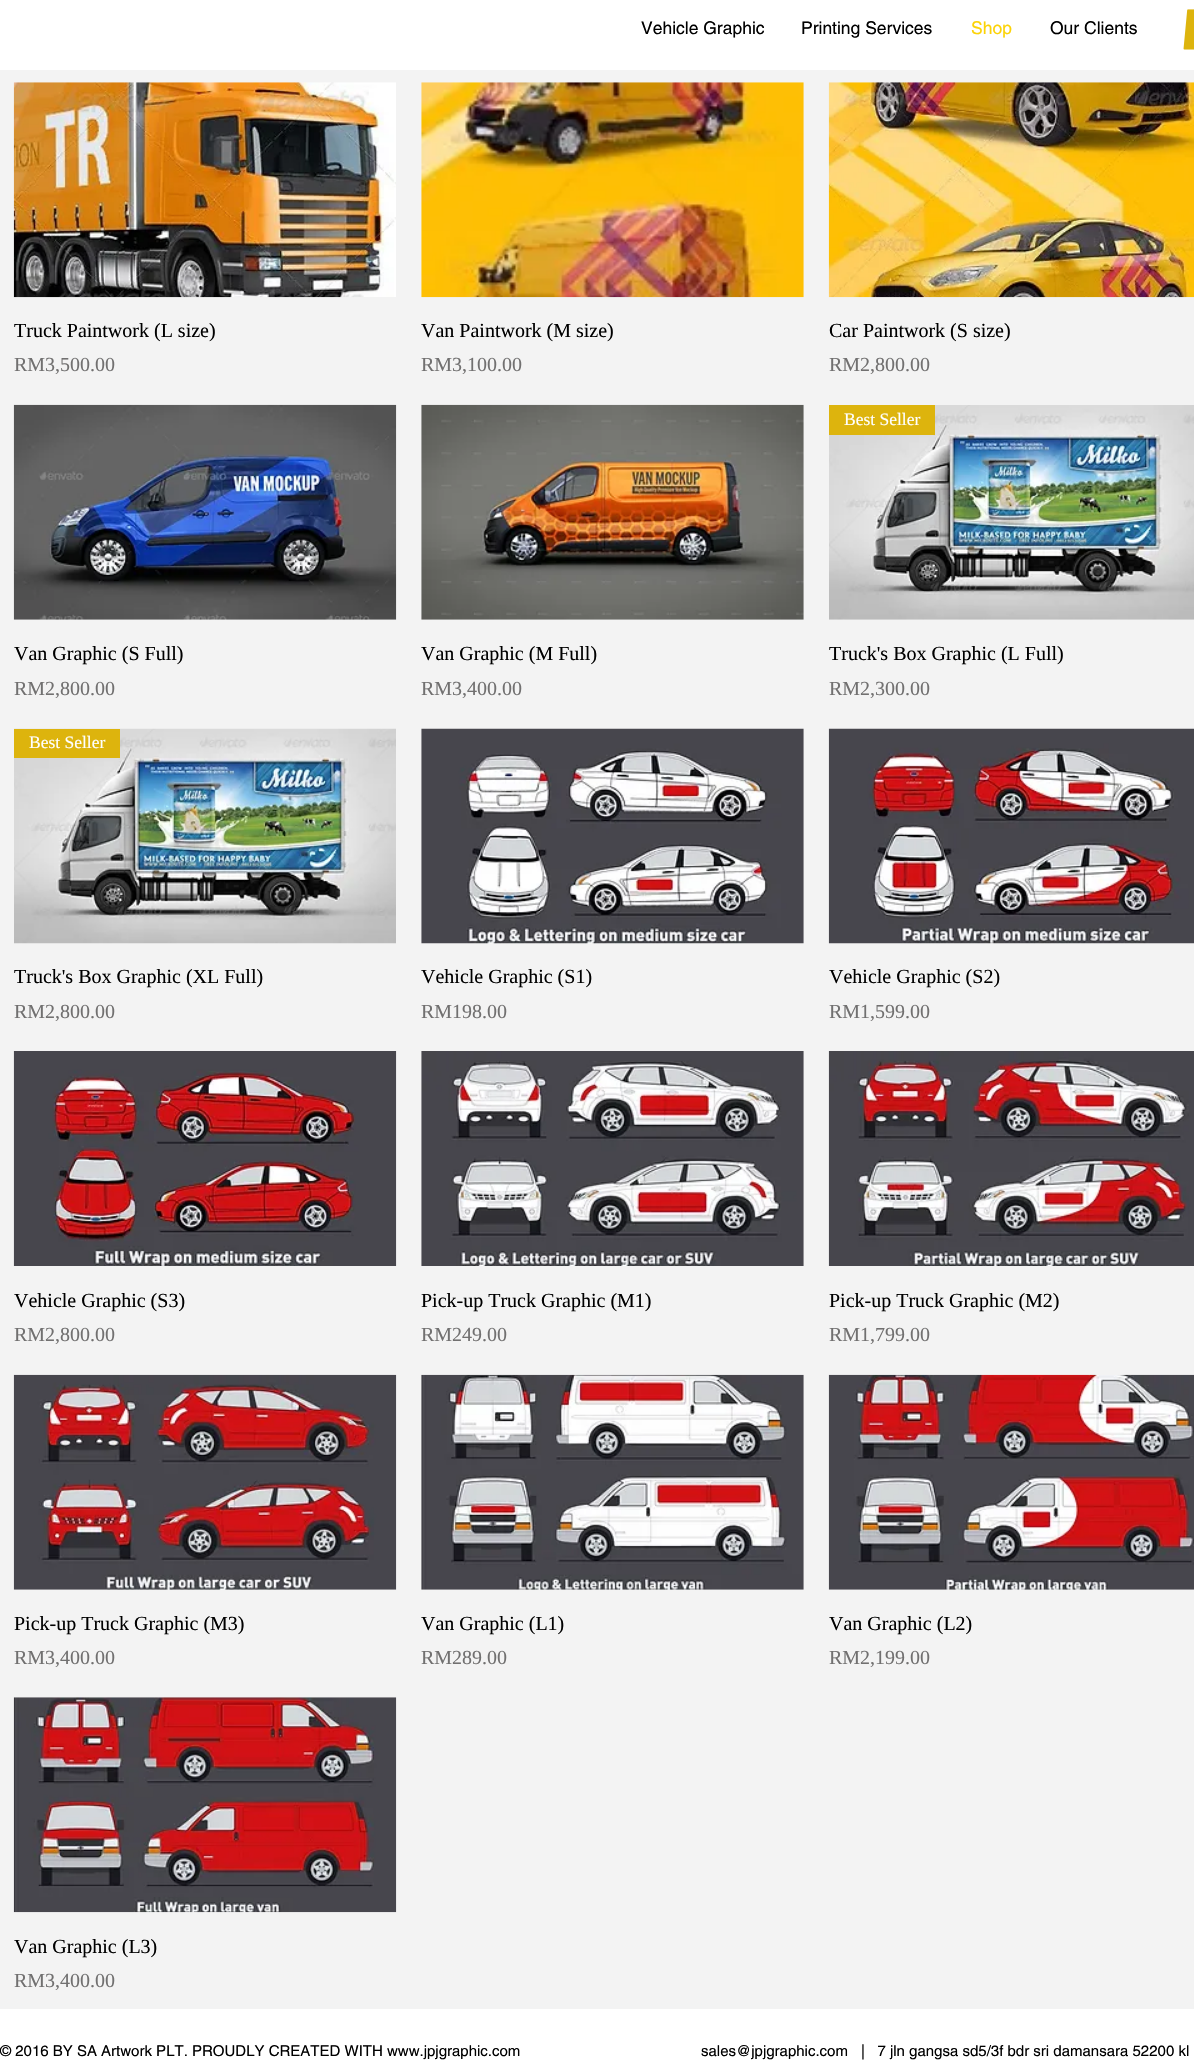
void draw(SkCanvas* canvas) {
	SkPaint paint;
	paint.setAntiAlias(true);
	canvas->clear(0xffffffff);
	SkFont f1(fontMgr->matchFamilyStyle("helvetica", SkFontStyle::Normal()), 17.5);
	f1.setSubpixel(true);
	paint.setColor(0xff000000);
	canvas->drawString("Vehicle Graphic", 641, 34, f1, paint);
	canvas->drawString("Printing Services", 801, 34, f1, paint);
	paint.setColor(0xfffcd307);
	canvas->drawString("Shop", 971, 34, f1, paint);
	paint.setColor(0xff000000);
	canvas->drawString("Our Clients", 1050, 34, f1, paint);
	canvas->drawImageRect(SkImages::DeferredFromEncodedData(SkData::MakeFromFileName("img1.png")), SkRect::MakeXYWH(1183, 9, 11, 41), SkSamplingOptions());
	paint.setColor(0xfff3f3f3);
	canvas->drawRect(SkRect::MakeXYWH(0, 70, 1194, 1939), paint);
	canvas->drawImageRect(SkImages::DeferredFromEncodedData(SkData::MakeFromFileName("img2.png")), SkRect::MakeXYWH(13, 82, 383, 216), SkSamplingOptions());
	SkFont f2(fontMgr->matchFamilyStyle("Liberation Serif", SkFontStyle::Normal()), 20);
	f2.setSubpixel(true);
	paint.setColor(0xff000000);
	canvas->drawString("Truck Paintwork (L size)", 14, 337, f2, paint);
	paint.setColor(0xff717070);
	canvas->drawString("RM3,500.00", 14, 371, f2, paint);
	canvas->drawImageRect(SkImages::DeferredFromEncodedData(SkData::MakeFromFileName("img3.png")), SkRect::MakeXYWH(421, 82, 383, 216), SkSamplingOptions());
	paint.setColor(0xff000000);
	canvas->drawString("Van Paintwork (M size)", 421, 337, f2, paint);
	paint.setColor(0xff717070);
	canvas->drawString("RM3,100.00", 421, 371, f2, paint);
	canvas->drawImageRect(SkImages::DeferredFromEncodedData(SkData::MakeFromFileName("img4.png")), SkRect::MakeXYWH(828, 82, 366, 216), SkSamplingOptions());
	paint.setColor(0xff000000);
	canvas->drawString("Car Paintwork (S size)", 829, 337, f2, paint);
	paint.setColor(0xff717070);
	canvas->drawString("RM2,800.00", 829, 371, f2, paint);
	canvas->drawImageRect(SkImages::DeferredFromEncodedData(SkData::MakeFromFileName("img5.png")), SkRect::MakeXYWH(13, 404, 384, 216), SkSamplingOptions());
	paint.setColor(0xff000000);
	canvas->drawString("Van Graphic (S Full)", 14, 660, f2, paint);
	paint.setColor(0xff717070);
	canvas->drawString("RM2,800.00", 14, 695, f2, paint);
	canvas->drawImageRect(SkImages::DeferredFromEncodedData(SkData::MakeFromFileName("img6.png")), SkRect::MakeXYWH(421, 404, 383, 216), SkSamplingOptions());
	paint.setColor(0xff000000);
	canvas->drawString("Van Graphic (M Full)", 421, 660, f2, paint);
	paint.setColor(0xff717070);
	canvas->drawString("RM3,400.00", 421, 695, f2, paint);
	canvas->drawImageRect(SkImages::DeferredFromEncodedData(SkData::MakeFromFileName("img7.png")), SkRect::MakeXYWH(829, 405, 365, 215), SkSamplingOptions());
	paint.setColor(0xffddb40d);
	canvas->drawRect(SkRect::MakeXYWH(829, 405, 106, 30), paint);
	SkFont f3(fontMgr->matchFamilyStyle("Liberation Serif", SkFontStyle::Normal()), 17.5);
	f3.setSubpixel(true);
	paint.setColor(0xffffffff);
	canvas->drawString("Best Seller", 844, 425, f3, paint);
	paint.setColor(0xff000000);
	canvas->drawString("Truck's Box Graphic (L Full)", 829, 660, f2, paint);
	paint.setColor(0xff717070);
	canvas->drawString("RM2,300.00", 829, 695, f2, paint);
	canvas->drawImageRect(SkImages::DeferredFromEncodedData(SkData::MakeFromFileName("img8.png")), SkRect::MakeXYWH(14, 728, 382, 216), SkSamplingOptions());
	paint.setColor(0xffddb40d);
	canvas->drawRect(SkRect::MakeXYWH(14, 729, 106, 29), paint);
	paint.setColor(0xffffffff);
	canvas->drawString("Best Seller", 29, 748, f3, paint);
	paint.setColor(0xff000000);
	canvas->drawString("Truck's Box Graphic (XL Full)", 14, 983, f2, paint);
	paint.setColor(0xff717070);
	canvas->drawString("RM2,800.00", 14, 1018, f2, paint);
	canvas->drawImageRect(SkImages::DeferredFromEncodedData(SkData::MakeFromFileName("img9.png")), SkRect::MakeXYWH(421, 728, 383, 216), SkSamplingOptions());
	paint.setColor(0xff000000);
	canvas->drawString("Vehicle Graphic (S1)", 421, 983, f2, paint);
	paint.setColor(0xff717070);
	canvas->drawString("RM198.00", 421, 1018, f2, paint);
	canvas->drawImageRect(SkImages::DeferredFromEncodedData(SkData::MakeFromFileName("img10.png")), SkRect::MakeXYWH(828, 728, 366, 216), SkSamplingOptions());
	paint.setColor(0xff000000);
	canvas->drawString("Vehicle Graphic (S2)", 829, 983, f2, paint);
	paint.setColor(0xff717070);
	canvas->drawString("RM1,599.00", 829, 1018, f2, paint);
	canvas->drawImageRect(SkImages::DeferredFromEncodedData(SkData::MakeFromFileName("img11.png")), SkRect::MakeXYWH(13, 1051, 384, 215), SkSamplingOptions());
	paint.setColor(0xff000000);
	canvas->drawString("Vehicle Graphic (S3)", 14, 1307, f2, paint);
	paint.setColor(0xff717070);
	canvas->drawString("RM2,800.00", 14, 1341, f2, paint);
	canvas->drawImageRect(SkImages::DeferredFromEncodedData(SkData::MakeFromFileName("img12.png")), SkRect::MakeXYWH(421, 1051, 383, 215), SkSamplingOptions());
	paint.setColor(0xff000000);
	canvas->drawString("Pick-up Truck Graphic (M1)", 421, 1307, f2, paint);
	paint.setColor(0xff717070);
	canvas->drawString("RM249.00", 421, 1341, f2, paint);
	canvas->drawImageRect(SkImages::DeferredFromEncodedData(SkData::MakeFromFileName("img13.png")), SkRect::MakeXYWH(828, 1051, 366, 215), SkSamplingOptions());
	paint.setColor(0xff000000);
	canvas->drawString("Pick-up Truck Graphic (M2)", 829, 1307, f2, paint);
	paint.setColor(0xff717070);
	canvas->drawString("RM1,799.00", 829, 1341, f2, paint);
	canvas->drawImageRect(SkImages::DeferredFromEncodedData(SkData::MakeFromFileName("img14.png")), SkRect::MakeXYWH(13, 1374, 384, 216), SkSamplingOptions());
	paint.setColor(0xff000000);
	canvas->drawString("Pick-up Truck Graphic (M3)", 14, 1630, f2, paint);
	paint.setColor(0xff717070);
	canvas->drawString("RM3,400.00", 14, 1664, f2, paint);
	canvas->drawImageRect(SkImages::DeferredFromEncodedData(SkData::MakeFromFileName("img15.png")), SkRect::MakeXYWH(421, 1374, 383, 216), SkSamplingOptions());
	paint.setColor(0xff000000);
	canvas->drawString("Van Graphic (L1)", 421, 1630, f2, paint);
	paint.setColor(0xff717070);
	canvas->drawString("RM289.00", 421, 1664, f2, paint);
	canvas->drawImageRect(SkImages::DeferredFromEncodedData(SkData::MakeFromFileName("img16.png")), SkRect::MakeXYWH(828, 1374, 366, 216), SkSamplingOptions());
	paint.setColor(0xff000000);
	canvas->drawString("Van Graphic (L2)", 829, 1630, f2, paint);
	paint.setColor(0xff717070);
	canvas->drawString("RM2,199.00", 829, 1664, f2, paint);
	canvas->drawImageRect(SkImages::DeferredFromEncodedData(SkData::MakeFromFileName("img17.png")), SkRect::MakeXYWH(13, 1697, 384, 216), SkSamplingOptions());
	paint.setColor(0xff000000);
	canvas->drawString("Van Graphic (L3)", 14, 1953, f2, paint);
	paint.setColor(0xff717070);
	canvas->drawString("RM3,400.00", 14, 1987, f2, paint);
	SkFont f4(fontMgr->matchFamilyStyle("helvetica", SkFontStyle::Normal()), 15);
	f4.setSubpixel(true);
	paint.setColor(0xff000000);
	canvas->drawString("© 2016 BY SA Artwork PLT. PROUDLY CREATED WITH www.jpjgraphic.com", 0, 2056, f4, paint);
	canvas->drawString("sales@jpjgraphic.com", 701, 2056, f4, paint);
	canvas->drawString("|   7 jln gangsa sd5/3f bdr sri damansara 52200 kl", 861, 2056, f4, paint);
}
